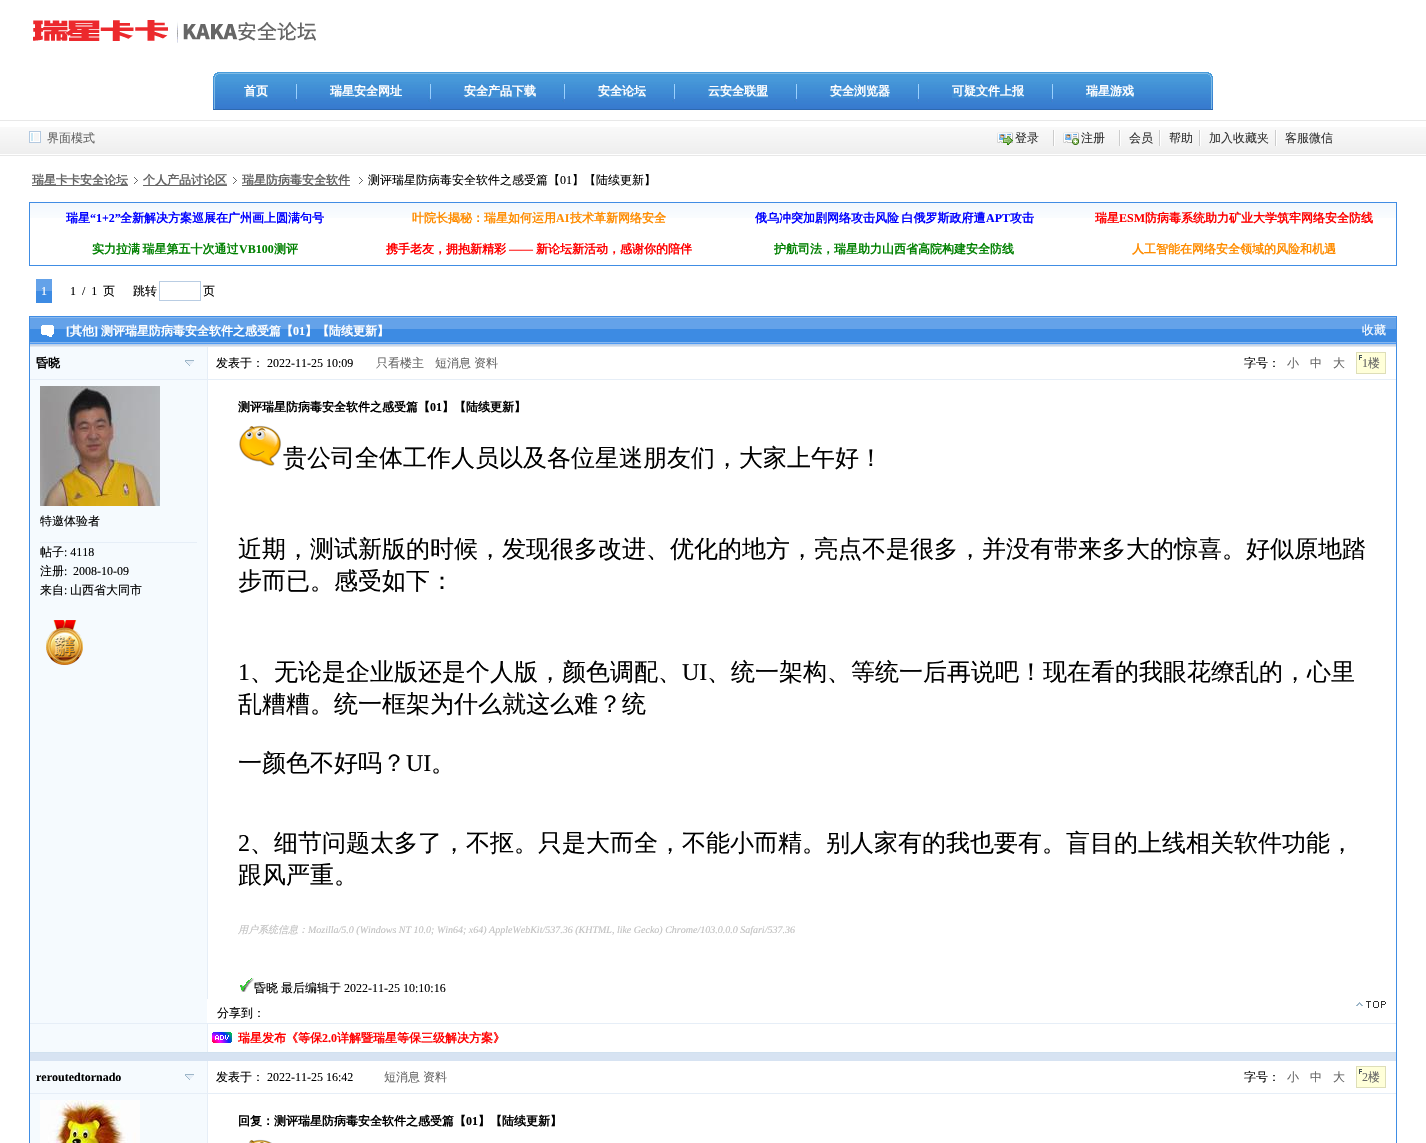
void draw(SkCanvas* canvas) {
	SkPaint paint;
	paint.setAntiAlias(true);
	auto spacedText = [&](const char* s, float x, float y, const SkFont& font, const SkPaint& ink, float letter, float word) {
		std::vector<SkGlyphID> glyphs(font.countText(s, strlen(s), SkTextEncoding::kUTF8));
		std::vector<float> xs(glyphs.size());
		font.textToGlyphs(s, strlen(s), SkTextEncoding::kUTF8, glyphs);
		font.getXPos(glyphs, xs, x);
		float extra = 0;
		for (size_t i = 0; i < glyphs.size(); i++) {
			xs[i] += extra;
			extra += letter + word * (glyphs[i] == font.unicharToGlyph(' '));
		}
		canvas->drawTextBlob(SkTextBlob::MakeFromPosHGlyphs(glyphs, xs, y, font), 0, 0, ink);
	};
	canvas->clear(0xffffffff);
	canvas->drawImageRect(SkImages::DeferredFromEncodedData(SkData::MakeFromFileName("img1.png")), SkRect::MakeXYWH(33, 20, 283, 23), SkSamplingOptions());
	canvas->drawImageRect(SkImages::DeferredFromEncodedData(SkData::MakeFromFileName("img2.png")), SkRect::MakeXYWH(213, 72, 1000, 38), SkSamplingOptions());
	paint.setColor(0xff4190d6);
	canvas->drawRect(SkRect::MakeXYWH(244, 84, 24, 14), paint);
	SkFont f1(fontMgr->matchFamilyStyle("WenQuanYi Zen Hei", SkFontStyle::Bold()), 12);
	f1.setSubpixel(true);
	paint.setColor(0xffffffff);
	canvas->drawString("首页", 244, 95, f1, paint);
	canvas->drawImageRect(SkImages::DeferredFromEncodedData(SkData::MakeFromFileName("img3.png")), SkRect::MakeXYWH(294, 80, 3, 22), SkSamplingOptions());
	paint.setColor(0xff4190d6);
	canvas->drawRect(SkRect::MakeXYWH(330, 84, 72, 14), paint);
	paint.setColor(0xffffffff);
	canvas->drawString("瑞星安全网址", 330, 95, f1, paint);
	canvas->drawImageRect(SkImages::DeferredFromEncodedData(SkData::MakeFromFileName("img3.png")), SkRect::MakeXYWH(428, 80, 3, 22), SkSamplingOptions());
	paint.setColor(0xff4190d6);
	canvas->drawRect(SkRect::MakeXYWH(464, 84, 72, 14), paint);
	paint.setColor(0xffffffff);
	canvas->drawString("安全产品下载", 464, 95, f1, paint);
	canvas->drawImageRect(SkImages::DeferredFromEncodedData(SkData::MakeFromFileName("img3.png")), SkRect::MakeXYWH(562, 80, 3, 22), SkSamplingOptions());
	paint.setColor(0xff4190d6);
	canvas->drawRect(SkRect::MakeXYWH(598, 84, 48, 14), paint);
	paint.setColor(0xffffffff);
	canvas->drawString("安全论坛", 598, 95, f1, paint);
	canvas->drawImageRect(SkImages::DeferredFromEncodedData(SkData::MakeFromFileName("img3.png")), SkRect::MakeXYWH(672, 80, 3, 22), SkSamplingOptions());
	paint.setColor(0xff4190d6);
	canvas->drawRect(SkRect::MakeXYWH(708, 84, 60, 14), paint);
	paint.setColor(0xffffffff);
	canvas->drawString("云安全联盟", 708, 95, f1, paint);
	canvas->drawImageRect(SkImages::DeferredFromEncodedData(SkData::MakeFromFileName("img3.png")), SkRect::MakeXYWH(794, 80, 3, 22), SkSamplingOptions());
	paint.setColor(0xff4190d6);
	canvas->drawRect(SkRect::MakeXYWH(830, 84, 60, 14), paint);
	paint.setColor(0xffffffff);
	canvas->drawString("安全浏览器", 830, 95, f1, paint);
	canvas->drawImageRect(SkImages::DeferredFromEncodedData(SkData::MakeFromFileName("img3.png")), SkRect::MakeXYWH(916, 80, 3, 22), SkSamplingOptions());
	paint.setColor(0xff4190d6);
	canvas->drawRect(SkRect::MakeXYWH(952, 84, 72, 14), paint);
	paint.setColor(0xffffffff);
	canvas->drawString("可疑文件上报", 952, 95, f1, paint);
	canvas->drawImageRect(SkImages::DeferredFromEncodedData(SkData::MakeFromFileName("img3.png")), SkRect::MakeXYWH(1050, 80, 3, 22), SkSamplingOptions());
	paint.setColor(0xff4190d6);
	canvas->drawRect(SkRect::MakeXYWH(1086, 84, 48, 14), paint);
	paint.setColor(0xffffffff);
	canvas->drawString("瑞星游戏", 1086, 95, f1, paint);
	canvas->drawImageRect(SkImages::DeferredFromEncodedData(SkData::MakeFromFileName("img4.png")), SkRect::MakeXYWH(0, 127, 1426, 27), SkSamplingOptions());
	paint.setColor(0xffe8e8e8);
	canvas->drawRect(SkRect::MakeXYWH(0, 120, 1426, 1), paint);
	canvas->drawRect(SkRect::MakeXYWH(0, 155, 1426, 1), paint);
	canvas->drawImageRect(SkImages::DeferredFromEncodedData(SkData::MakeFromFileName("img5.png")), SkRect::MakeXYWH(29, 131, 12, 12), SkSamplingOptions());
	SkFont f2(fontMgr->matchFamilyStyle("WenQuanYi Zen Hei", SkFontStyle(500, SkFontStyle::kNormal_Width, SkFontStyle::kUpright_Slant)), 12);
	f2.setSubpixel(true);
	paint.setColor(0xff666666);
	canvas->drawString("界面模式", 47, 142, f2, paint);
	canvas->drawImageRect(SkImages::DeferredFromEncodedData(SkData::MakeFromFileName("img6.png")), SkRect::MakeXYWH(1053, 130, 2, 16), SkSamplingOptions());
	canvas->drawImageRect(SkImages::DeferredFromEncodedData(SkData::MakeFromFileName("img7.png")), SkRect::MakeXYWH(997, 132, 16, 13), SkSamplingOptions());
	paint.setColor(0xff333333);
	canvas->drawString("登录", 1015, 142, f2, paint);
	canvas->drawImageRect(SkImages::DeferredFromEncodedData(SkData::MakeFromFileName("img6.png")), SkRect::MakeXYWH(1119, 130, 2, 16), SkSamplingOptions());
	canvas->drawImageRect(SkImages::DeferredFromEncodedData(SkData::MakeFromFileName("img8.png")), SkRect::MakeXYWH(1063, 132, 16, 13), SkSamplingOptions());
	canvas->drawString("注册", 1081, 142, f2, paint);
	canvas->drawImageRect(SkImages::DeferredFromEncodedData(SkData::MakeFromFileName("img6.png")), SkRect::MakeXYWH(1159, 130, 2, 16), SkSamplingOptions());
	canvas->drawString("会员", 1129, 142, f2, paint);
	canvas->drawImageRect(SkImages::DeferredFromEncodedData(SkData::MakeFromFileName("img6.png")), SkRect::MakeXYWH(1199, 130, 2, 16), SkSamplingOptions());
	canvas->drawString("帮助", 1169, 142, f2, paint);
	canvas->drawImageRect(SkImages::DeferredFromEncodedData(SkData::MakeFromFileName("img6.png")), SkRect::MakeXYWH(1275, 130, 2, 16), SkSamplingOptions());
	canvas->drawString("加入收藏夹", 1209, 142, f2, paint);
	canvas->drawString("客服微信", 1285, 142, f2, paint);
	paint.setColor(0xff666666);
	canvas->drawRect(SkRect::MakeXYWH(32, 185, 96, 1), paint);
	canvas->drawString("瑞星卡卡安全论坛", 32, 184, f1, paint);
	canvas->drawImageRect(SkImages::DeferredFromEncodedData(SkData::MakeFromFileName("img9.png")), SkRect::MakeXYWH(134, 177, 4, 7), SkSamplingOptions());
	canvas->drawRect(SkRect::MakeXYWH(143, 185, 84, 1), paint);
	canvas->drawString("个人产品讨论区", 143, 184, f1, paint);
	canvas->drawImageRect(SkImages::DeferredFromEncodedData(SkData::MakeFromFileName("img9.png")), SkRect::MakeXYWH(233, 177, 4, 7), SkSamplingOptions());
	canvas->drawRect(SkRect::MakeXYWH(242, 185, 108, 1), paint);
	canvas->drawString("瑞星防病毒安全软件", 242, 184, f1, paint);
	canvas->drawImageRect(SkImages::DeferredFromEncodedData(SkData::MakeFromFileName("img9.png")), SkRect::MakeXYWH(359, 177, 4, 7), SkSamplingOptions());
	paint.setColor(0xff000000);
	canvas->drawString("测评瑞星防病毒安全软件之感受篇【", 368, 184, f2, paint);
	SkFont f3(fontMgr->matchFamilyStyle("Liberation Serif", SkFontStyle::Normal()), 12);
	f3.setSubpixel(true);
	canvas->drawString("01", 560, 184, f3, paint);
	canvas->drawString("】【陆续更新】", 572, 184, f2, paint);
	canvas->drawImageRect(SkImages::DeferredFromEncodedData(SkData::MakeFromFileName("img10.png")), SkRect::MakeXYWH(30, 203, 1366, 15), SkSamplingOptions());
	paint.setStroke(true);
	paint.setStrokeWidth(1);
	paint.setColor(0xff408de4);
	canvas->drawRect(SkRect::MakeXYWH(29.5, 202.5, 1367, 63), paint);
	paint.setStroke(false);
	paint.setColor(0xff0000ff);
	canvas->drawString("瑞星", 66, 222, f1, paint);
	SkFont f4(fontMgr->matchFamilyStyle("Liberation Serif", SkFontStyle::Bold()), 12);
	f4.setSubpixel(true);
	canvas->drawString("“1+2”", 90, 222, f4, paint);
	canvas->drawString("全新解决方案巡展在广州画上圆满句号", 120, 222, f1, paint);
	paint.setColor(0xffff8c00);
	canvas->drawString("叶院长揭秘：瑞星如何运用", 412, 222, f1, paint);
	canvas->drawString("AI", 556, 222, f4, paint);
	canvas->drawString("技术革新网络安全", 570, 222, f1, paint);
	paint.setColor(0xff0000ff);
	spacedText("俄乌冲突加剧网络攻击风险 白俄罗斯政府遭", 755, 222, f1, paint, 0, -1);
	canvas->drawString("APT", 986, 222, f4, paint);
	canvas->drawString("攻击", 1010, 222, f1, paint);
	paint.setColor(0xffff0000);
	canvas->drawString("瑞星", 1095, 222, f1, paint);
	canvas->drawString("ESM", 1119, 222, f4, paint);
	canvas->drawString("防病毒系统助力矿业大学筑牢网络安全防线", 1145, 222, f1, paint);
	paint.setColor(0xff008000);
	spacedText("实力拉满 瑞星第五十次通过", 92, 253, f1, paint, 0, -1);
	canvas->drawString("VB100", 239, 253, f4, paint);
	canvas->drawString("测评", 274, 253, f1, paint);
	paint.setColor(0xffff0000);
	canvas->drawString("携手老友，拥抱新精彩", 386, 253, f1, paint);
	canvas->drawString("——", 509, 253, f4, paint);
	canvas->drawString("新论坛新活动，感谢你的陪伴", 536, 253, f1, paint);
	paint.setColor(0xff008000);
	canvas->drawString("护航司法，瑞星助力山西省高院构建安全防线", 774, 253, f1, paint);
	paint.setColor(0xffff8c00);
	canvas->drawString("人工智能在网络安全领域的风险和机遇", 1132, 253, f1, paint);
	canvas->drawImageRect(SkImages::DeferredFromEncodedData(SkData::MakeFromFileName("img11.png")), SkRect::MakeXYWH(36, 279, 16, 24), SkSamplingOptions());
	paint.setColor(0xffffffff);
	canvas->drawString("1", 41, 295, f3, paint);
	paint.setColor(0xff000000);
	canvas->drawString("1", 70, 295, f3, paint);
	canvas->drawString("/  1", 82, 295, f3, paint);
	canvas->drawString("页", 103, 295, f2, paint);
	canvas->drawString("跳转", 133, 295, f2, paint);
	paint.setStroke(true);
	paint.setColor(0xffb9cde3);
	canvas->drawRect(SkRect::MakeXYWH(159.5, 281.5, 41, 19), paint);
	paint.setStroke(false);
	paint.setColor(0xff000000);
	canvas->drawString("页", 203, 295, f2, paint);
	paint.setStroke(true);
	paint.setColor(0xff408de4);
	canvas->drawRect(SkRect::MakeXYWH(29.5, 316.5, 1367, 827), paint);
	canvas->drawImageRect(SkImages::DeferredFromEncodedData(SkData::MakeFromFileName("img12.png")), SkRect::MakeXYWH(30, 317, 1366, 30), SkSamplingOptions());
	canvas->drawImageRect(SkImages::DeferredFromEncodedData(SkData::MakeFromFileName("img13.png")), SkRect::MakeXYWH(41, 325, 13, 12), SkSamplingOptions());
	paint.setStroke(false);
	paint.setColor(0xffffffff);
	canvas->drawString("[", 66, 335, f4, paint);
	canvas->drawString("其他", 70, 335, f1, paint);
	canvas->drawString("]", 94, 335, f4, paint);
	canvas->drawString("测评瑞星防病毒安全软件之感受篇【", 101, 335, f1, paint);
	canvas->drawString("01", 293, 335, f4, paint);
	canvas->drawString("】【陆续更新】", 305, 335, f1, paint);
	canvas->drawString("收藏", 1362, 334, f2, paint);
	paint.setColor(0xfff5fafe);
	canvas->drawRect(SkRect::MakeXYWH(30, 347, 177, 676), paint);
	canvas->drawImageRect(SkImages::DeferredFromEncodedData(SkData::MakeFromFileName("img14.png")), SkRect::MakeXYWH(185, 360, 9, 6), SkSamplingOptions());
	paint.setColor(0xff000000);
	canvas->drawString("昏晓", 36, 367, f1, paint);
	paint.setColor(0xffe6eef7);
	canvas->drawRect(SkRect::MakeXYWH(30, 379, 177, 1), paint);
	canvas->drawImageRect(SkImages::DeferredFromEncodedData(SkData::MakeFromFileName("img15.png")), SkRect::MakeXYWH(40, 386, 120, 120), SkSamplingOptions());
	paint.setColor(0xff000000);
	canvas->drawString("特邀体验者", 40, 525, f2, paint);
	paint.setColor(0xffe6eef7);
	canvas->drawRect(SkRect::MakeXYWH(40, 542, 157, 1), paint);
	paint.setColor(0xff000000);
	canvas->drawString("帖子", 40, 556, f2, paint);
	canvas->drawString(": 4118", 64, 556, f3, paint);
	canvas->drawString("注册", 40, 575, f2, paint);
	canvas->drawString(":", 64, 575, f3, paint);
	canvas->drawString("2008-10-09", 73, 575, f3, paint);
	canvas->drawString("来自", 40, 594, f2, paint);
	canvas->drawString(":", 64, 594, f3, paint);
	canvas->drawString("山西省大同市", 70, 594, f2, paint);
	canvas->drawImageRect(SkImages::DeferredFromEncodedData(SkData::MakeFromFileName("img16.png")), SkRect::MakeXYWH(46, 620, 37, 45), SkSamplingOptions());
	paint.setColor(0xffe6eef7);
	canvas->drawRect(SkRect::MakeXYWH(207, 347, 1, 652), paint);
	canvas->drawRect(SkRect::MakeXYWH(208, 379, 1188, 1), paint);
	paint.setColor(0xff000000);
	canvas->drawString("发表于：", 216, 367, f2, paint);
	canvas->drawString("2022-11-25 10:09", 267, 367, f3, paint);
	paint.setColor(0xff666666);
	canvas->drawString("只看楼主", 376, 367, f2, paint);
	canvas->drawString("短消息", 435, 367, f2, paint);
	canvas->drawString("资料", 474, 367, f2, paint);
	paint.setColor(0xff000000);
	canvas->drawString("字号：", 1244, 367, f2, paint);
	paint.setColor(0xff666666);
	canvas->drawString("小", 1287, 367, f2, paint);
	canvas->drawString("中", 1310, 367, f2, paint);
	canvas->drawString("大", 1333, 367, f2, paint);
	paint.setColor(0xffffffd9);
	canvas->drawRect(SkRect::MakeXYWH(1357, 353, 28, 20), paint);
	canvas->drawImageRect(SkImages::DeferredFromEncodedData(SkData::MakeFromFileName("img17.png")), SkRect::MakeXYWH(1359, 355, 3, 5), SkSamplingOptions());
	paint.setStroke(true);
	paint.setColor(0xffdedeb8);
	canvas->drawRect(SkRect::MakeXYWH(1356.5, 352.5, 29, 21), paint);
	paint.setStroke(false);
	paint.setColor(0xff666666);
	canvas->drawString("1", 1362, 367, f3, paint);
	canvas->drawString("楼", 1368, 367, f2, paint);
	paint.setColor(0xff000000);
	canvas->drawString("测评瑞星防病毒安全软件之感受篇【", 238, 411, f1, paint);
	canvas->drawString("01", 430, 411, f4, paint);
	canvas->drawString("】【陆续更新】", 442, 411, f1, paint);
	canvas->drawImageRect(SkImages::DeferredFromEncodedData(SkData::MakeFromFileName("img18.png")), SkRect::MakeXYWH(239, 425, 43, 41), SkSamplingOptions());
	SkFont f5(fontMgr->matchFamilyStyle("WenQuanYi Zen Hei", SkFontStyle(500, SkFontStyle::kNormal_Width, SkFontStyle::kUpright_Slant)), 24);
	f5.setSubpixel(true);
	canvas->drawString("贵公司全体工作人员以及各位星迷朋友们，大家上午好！", 283, 466, f5, paint);
	canvas->drawString("近期，测试新版的时候，发现很多改进、优化的地方，亮点不是很多，并没有带来多大的惊喜。好似原地踏", 238, 557, f5, paint);
	canvas->drawString("步而已。感受如下：", 238, 589, f5, paint);
	SkFont f6(fontMgr->matchFamilyStyle("Liberation Serif", SkFontStyle::Normal()), 24);
	f6.setSubpixel(true);
	canvas->drawString("1", 238, 680, f6, paint);
	canvas->drawString("、无论是企业版还是个人版，颜色调配、", 250, 680, f5, paint);
	canvas->drawString("UI", 682, 680, f6, paint);
	canvas->drawString("、统一架构、等统一后再说吧！现在看的我眼花缭乱的，心里", 707, 680, f5, paint);
	canvas->drawString("乱糟糟。统一框架为什么就这么难？统", 238, 712, f5, paint);
	canvas->drawString("一颜色不好吗？", 238, 771, f5, paint);
	canvas->drawString("UI", 406, 771, f6, paint);
	canvas->drawString("。", 431, 771, f5, paint);
	canvas->drawString("2", 238, 851, f6, paint);
	canvas->drawString("、细节问题太多了，不抠。只是大而全，不能小而精。别人家有的我也要有。盲目的上线相关软件功能，", 250, 851, f5, paint);
	canvas->drawString("跟风严重。", 238, 883, f5, paint);
	SkFont f7(fontMgr->matchFamilyStyle("WenQuanYi Zen Hei", SkFontStyle(500, SkFontStyle::kNormal_Width, SkFontStyle::kItalic_Slant)), 10);
	f7.setSubpixel(true);
	paint.setColor(0xffc0c0c0);
	canvas->drawString("用户系统信息：", 238, 933, f7, paint);
	SkFont f8(fontMgr->matchFamilyStyle("Liberation Serif", SkFontStyle::Italic()), 10);
	f8.setSubpixel(true);
	canvas->drawString("Mozilla/5.0 (Windows NT 10.0; Win64; x64) AppleWebKit/537.36 (KHTML, like Gecko) Chrome/103.0.0.0 Safari/537.36", 308, 933, f8, paint);
	canvas->drawImageRect(SkImages::DeferredFromEncodedData(SkData::MakeFromFileName("img19.png")), SkRect::MakeXYWH(240, 978, 14, 14), SkSamplingOptions());
	paint.setColor(0xff000000);
	canvas->drawString("昏晓", 254, 992, f2, paint);
	canvas->drawString("最后编辑于", 281, 992, f2, paint);
	canvas->drawString("2022-11-25 10:10:16", 344, 992, f3, paint);
	canvas->drawImageRect(SkImages::DeferredFromEncodedData(SkData::MakeFromFileName("img20.png")), SkRect::MakeXYWH(1356, 1001, 30, 7), SkSamplingOptions());
	canvas->drawString("分享到：", 217, 1017, f2, paint);
	paint.setColor(0xfff5fafe);
	canvas->drawRect(SkRect::MakeXYWH(30, 1024, 177, 28), paint);
	paint.setColor(0xffe6eef7);
	canvas->drawRect(SkRect::MakeXYWH(30, 1023, 1366, 1), paint);
	canvas->drawRect(SkRect::MakeXYWH(207, 1023, 1, 29), paint);
	canvas->drawImageRect(SkImages::DeferredFromEncodedData(SkData::MakeFromFileName("img21.png")), SkRect::MakeXYWH(212, 1032, 20, 11), SkSamplingOptions());
	paint.setColor(0xffff0000);
	canvas->drawString("瑞星发布《等保", 238, 1042, f1, paint);
	canvas->drawString("2.0", 322, 1042, f4, paint);
	canvas->drawString("详解暨瑞星等保三级解决方案》", 337, 1042, f1, paint);
	paint.setColor(0xffd7e3f2);
	canvas->drawRect(SkRect::MakeXYWH(30, 1053, 1366, 8), paint);
	paint.setColor(0xffd1e1ef);
	canvas->drawRect(SkRect::MakeXYWH(30, 1052, 1366, 1), paint);
	paint.setColor(0xfff5fafe);
	canvas->drawRect(SkRect::MakeXYWH(30, 1061, 177, 82), paint);
	canvas->drawImageRect(SkImages::DeferredFromEncodedData(SkData::MakeFromFileName("img14.png")), SkRect::MakeXYWH(185, 1074, 9, 6), SkSamplingOptions());
	paint.setColor(0xff000000);
	canvas->drawString("reroutedtornado", 36, 1081, f4, paint);
	paint.setColor(0xffe6eef7);
	canvas->drawRect(SkRect::MakeXYWH(30, 1093, 177, 1), paint);
	canvas->drawImageRect(SkImages::DeferredFromEncodedData(SkData::MakeFromFileName("img22.png")), SkRect::MakeXYWH(40, 1100, 100, 43), SkSamplingOptions());
	canvas->drawRect(SkRect::MakeXYWH(207, 1061, 1, 82), paint);
	canvas->drawRect(SkRect::MakeXYWH(208, 1093, 1188, 1), paint);
	paint.setColor(0xff000000);
	canvas->drawString("发表于：", 216, 1081, f2, paint);
	canvas->drawString("2022-11-25 16:42", 267, 1081, f3, paint);
	paint.setColor(0xff666666);
	canvas->drawString("短消息", 384, 1081, f2, paint);
	canvas->drawString("资料", 423, 1081, f2, paint);
	paint.setColor(0xff000000);
	canvas->drawString("字号：", 1244, 1081, f2, paint);
	paint.setColor(0xff666666);
	canvas->drawString("小", 1287, 1081, f2, paint);
	canvas->drawString("中", 1310, 1081, f2, paint);
	canvas->drawString("大", 1333, 1081, f2, paint);
	paint.setColor(0xffffffd9);
	canvas->drawRect(SkRect::MakeXYWH(1357, 1067, 28, 20), paint);
	canvas->drawImageRect(SkImages::DeferredFromEncodedData(SkData::MakeFromFileName("img17.png")), SkRect::MakeXYWH(1359, 1069, 3, 5), SkSamplingOptions());
	paint.setStroke(true);
	paint.setColor(0xffdedeb8);
	canvas->drawRect(SkRect::MakeXYWH(1356.5, 1066.5, 29, 21), paint);
	paint.setStroke(false);
	paint.setColor(0xff666666);
	canvas->drawString("2", 1362, 1081, f3, paint);
	canvas->drawString("楼", 1368, 1081, f2, paint);
	paint.setColor(0xff000000);
	canvas->drawString("回复：测评瑞星防病毒安全软件之感受篇【", 238, 1125, f1, paint);
	canvas->drawString("01", 466, 1125, f4, paint);
	canvas->drawString("】【陆续更新】", 478, 1125, f1, paint);
	canvas->drawImageRect(SkImages::DeferredFromEncodedData(SkData::MakeFromFileName("img23.png")), SkRect::MakeXYWH(248, 1139, 24, 4), SkSamplingOptions());
}
